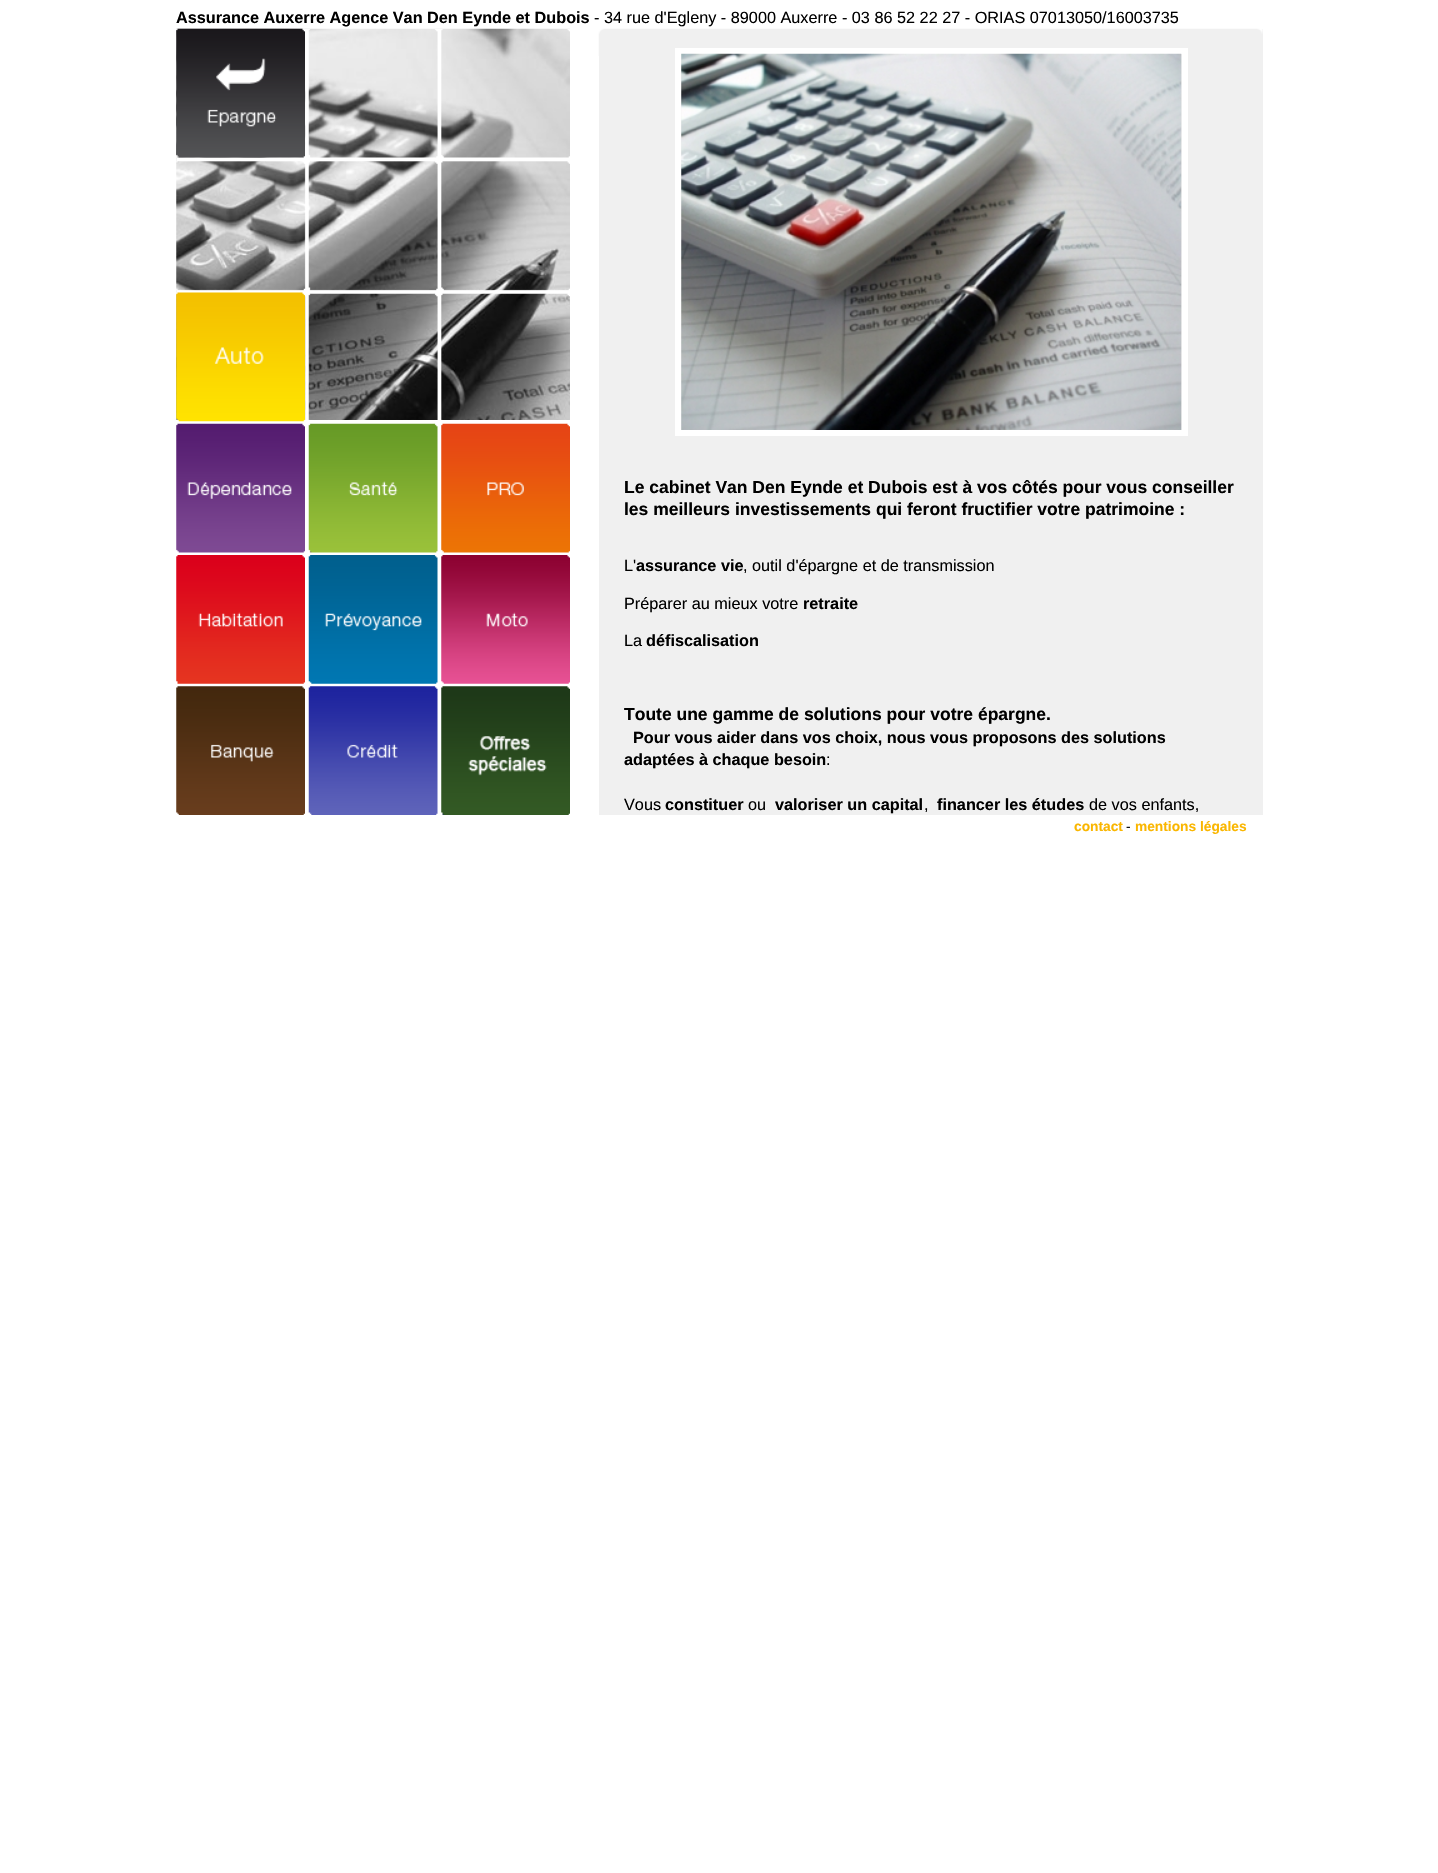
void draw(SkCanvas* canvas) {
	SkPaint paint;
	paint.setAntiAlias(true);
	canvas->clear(0xffffffff);
	SkFont f1(fontMgr->matchFamilyStyle("Liberation Sans", SkFontStyle::Bold()), 16.25);
	f1.setSubpixel(true);
	paint.setColor(0xff000000);
	canvas->drawString("Assurance Auxerre Agence Van Den Eynde et Dubois", 176, 23, f1, paint);
	SkFont f2(fontMgr->matchFamilyStyle("Liberation Sans", SkFontStyle::Normal()), 16.25);
	f2.setSubpixel(true);
	canvas->drawString("- 34 rue d'Egleny - 89000 Auxerre - 03 86 52 22 27 - ORIAS 07013050/16003735", 594, 23, f2, paint);
	canvas->drawImageRect(SkImages::DeferredFromEncodedData(SkData::MakeFromFileName("img1.png")), SkRect::MakeXYWH(176, 28, 394, 392), SkSamplingOptions());
	canvas->drawImageRect(SkImages::DeferredFromEncodedData(SkData::MakeFromFileName("img2.png")), SkRect::MakeXYWH(176, 29, 394, 391), SkSamplingOptions());
	canvas->drawImageRect(SkImages::DeferredFromEncodedData(SkData::MakeFromFileName("img3.png")), SkRect::MakeXYWH(176, 28, 129, 130), SkSamplingOptions());
	canvas->drawImageRect(SkImages::DeferredFromEncodedData(SkData::MakeFromFileName("img4.png")), SkRect::MakeXYWH(176, 292, 129, 130), SkSamplingOptions());
	canvas->drawImageRect(SkImages::DeferredFromEncodedData(SkData::MakeFromFileName("img5.png")), SkRect::MakeXYWH(176, 423, 129, 130), SkSamplingOptions());
	canvas->drawImageRect(SkImages::DeferredFromEncodedData(SkData::MakeFromFileName("img6.png")), SkRect::MakeXYWH(308, 423, 130, 130), SkSamplingOptions());
	canvas->drawImageRect(SkImages::DeferredFromEncodedData(SkData::MakeFromFileName("img7.png")), SkRect::MakeXYWH(441, 423, 129, 130), SkSamplingOptions());
	canvas->drawImageRect(SkImages::DeferredFromEncodedData(SkData::MakeFromFileName("img8.png")), SkRect::MakeXYWH(176, 555, 129, 129), SkSamplingOptions());
	canvas->drawImageRect(SkImages::DeferredFromEncodedData(SkData::MakeFromFileName("img9.png")), SkRect::MakeXYWH(308, 555, 130, 129), SkSamplingOptions());
	canvas->drawImageRect(SkImages::DeferredFromEncodedData(SkData::MakeFromFileName("img10.png")), SkRect::MakeXYWH(441, 555, 129, 129), SkSamplingOptions());
	canvas->drawImageRect(SkImages::DeferredFromEncodedData(SkData::MakeFromFileName("img11.png")), SkRect::MakeXYWH(176, 686, 129, 129), SkSamplingOptions());
	canvas->drawImageRect(SkImages::DeferredFromEncodedData(SkData::MakeFromFileName("img12.png")), SkRect::MakeXYWH(308, 686, 130, 129), SkSamplingOptions());
	canvas->drawImageRect(SkImages::DeferredFromEncodedData(SkData::MakeFromFileName("img13.png")), SkRect::MakeXYWH(441, 686, 129, 129), SkSamplingOptions());
	paint.setColor(0xfff0f0f0);
	canvas->drawRect(SkRect::MakeXYWH(599, 29, 664, 786), paint);
	canvas->drawImageRect(SkImages::DeferredFromEncodedData(SkData::MakeFromFileName("img14.png")), SkRect::MakeXYWH(598, 28, 665, 28), SkSamplingOptions());
	paint.setStroke(true);
	paint.setStrokeWidth(6);
	paint.setColor(0xffffffff);
	canvas->drawRect(SkRect::MakeXYWH(678, 51, 507, 382), paint);
	canvas->drawImageRect(SkImages::DeferredFromEncodedData(SkData::MakeFromFileName("img15.png")), SkRect::MakeXYWH(681, 53, 501, 377), SkSamplingOptions());
	SkFont f3(fontMgr->matchFamilyStyle("Liberation Sans", SkFontStyle::Bold()), 17.5);
	f3.setSubpixel(true);
	paint.setStroke(false);
	paint.setColor(0xff000000);
	canvas->drawString("Le cabinet Van Den Eynde et Dubois est à vos côtés pour vous conseiller", 624, 493, f3, paint);
	canvas->drawString("les meilleurs investissements qui feront fructifier votre patrimoine :", 624, 515, f3, paint);
	canvas->drawString("L'", 624, 571, f2, paint);
	canvas->drawString("assurance vie", 636, 571, f1, paint);
	canvas->drawString(", outil d'épargne et de transmission", 743, 571, f2, paint);
	canvas->drawString("Préparer au mieux votre", 624, 609, f2, paint);
	canvas->drawString("retraite", 803, 609, f1, paint);
	canvas->drawString("La", 624, 646, f2, paint);
	canvas->drawString("défiscalisation", 646, 646, f1, paint);
	canvas->drawString("Toute une gamme de solutions pour votre épargne.", 624, 720, f3, paint);
	canvas->drawString("Pour vous aider dans vos choix, nous vous proposons des solutions", 633, 743, f1, paint);
	canvas->drawString("adaptées à chaque besoin", 624, 765, f1, paint);
	canvas->drawString(":", 826, 765, f2, paint);
	canvas->drawString("Vous", 624, 810, f2, paint);
	canvas->drawString("constituer", 665, 810, f1, paint);
	canvas->drawString("ou", 748, 810, f2, paint);
	canvas->drawString("valoriser un capital", 775, 810, f1, paint);
	canvas->drawString(",", 924, 810, f2, paint);
	canvas->drawString("financer les études", 937, 810, f1, paint);
	canvas->drawString("de vos enfants,", 1089, 810, f2, paint);
	SkFont f4(fontMgr->matchFamilyStyle("Liberation Sans", SkFontStyle::Bold()), 13.75);
	f4.setSubpixel(true);
	paint.setColor(0xfffab600);
	canvas->drawString("contact", 1074, 831, f4, paint);
	SkFont f5(fontMgr->matchFamilyStyle("Liberation Sans", SkFontStyle::Normal()), 13.75);
	f5.setSubpixel(true);
	paint.setColor(0xff000000);
	canvas->drawString("-", 1126, 831, f5, paint);
	paint.setColor(0xfffab600);
	canvas->drawString("mentions légales", 1135, 831, f4, paint);
}
